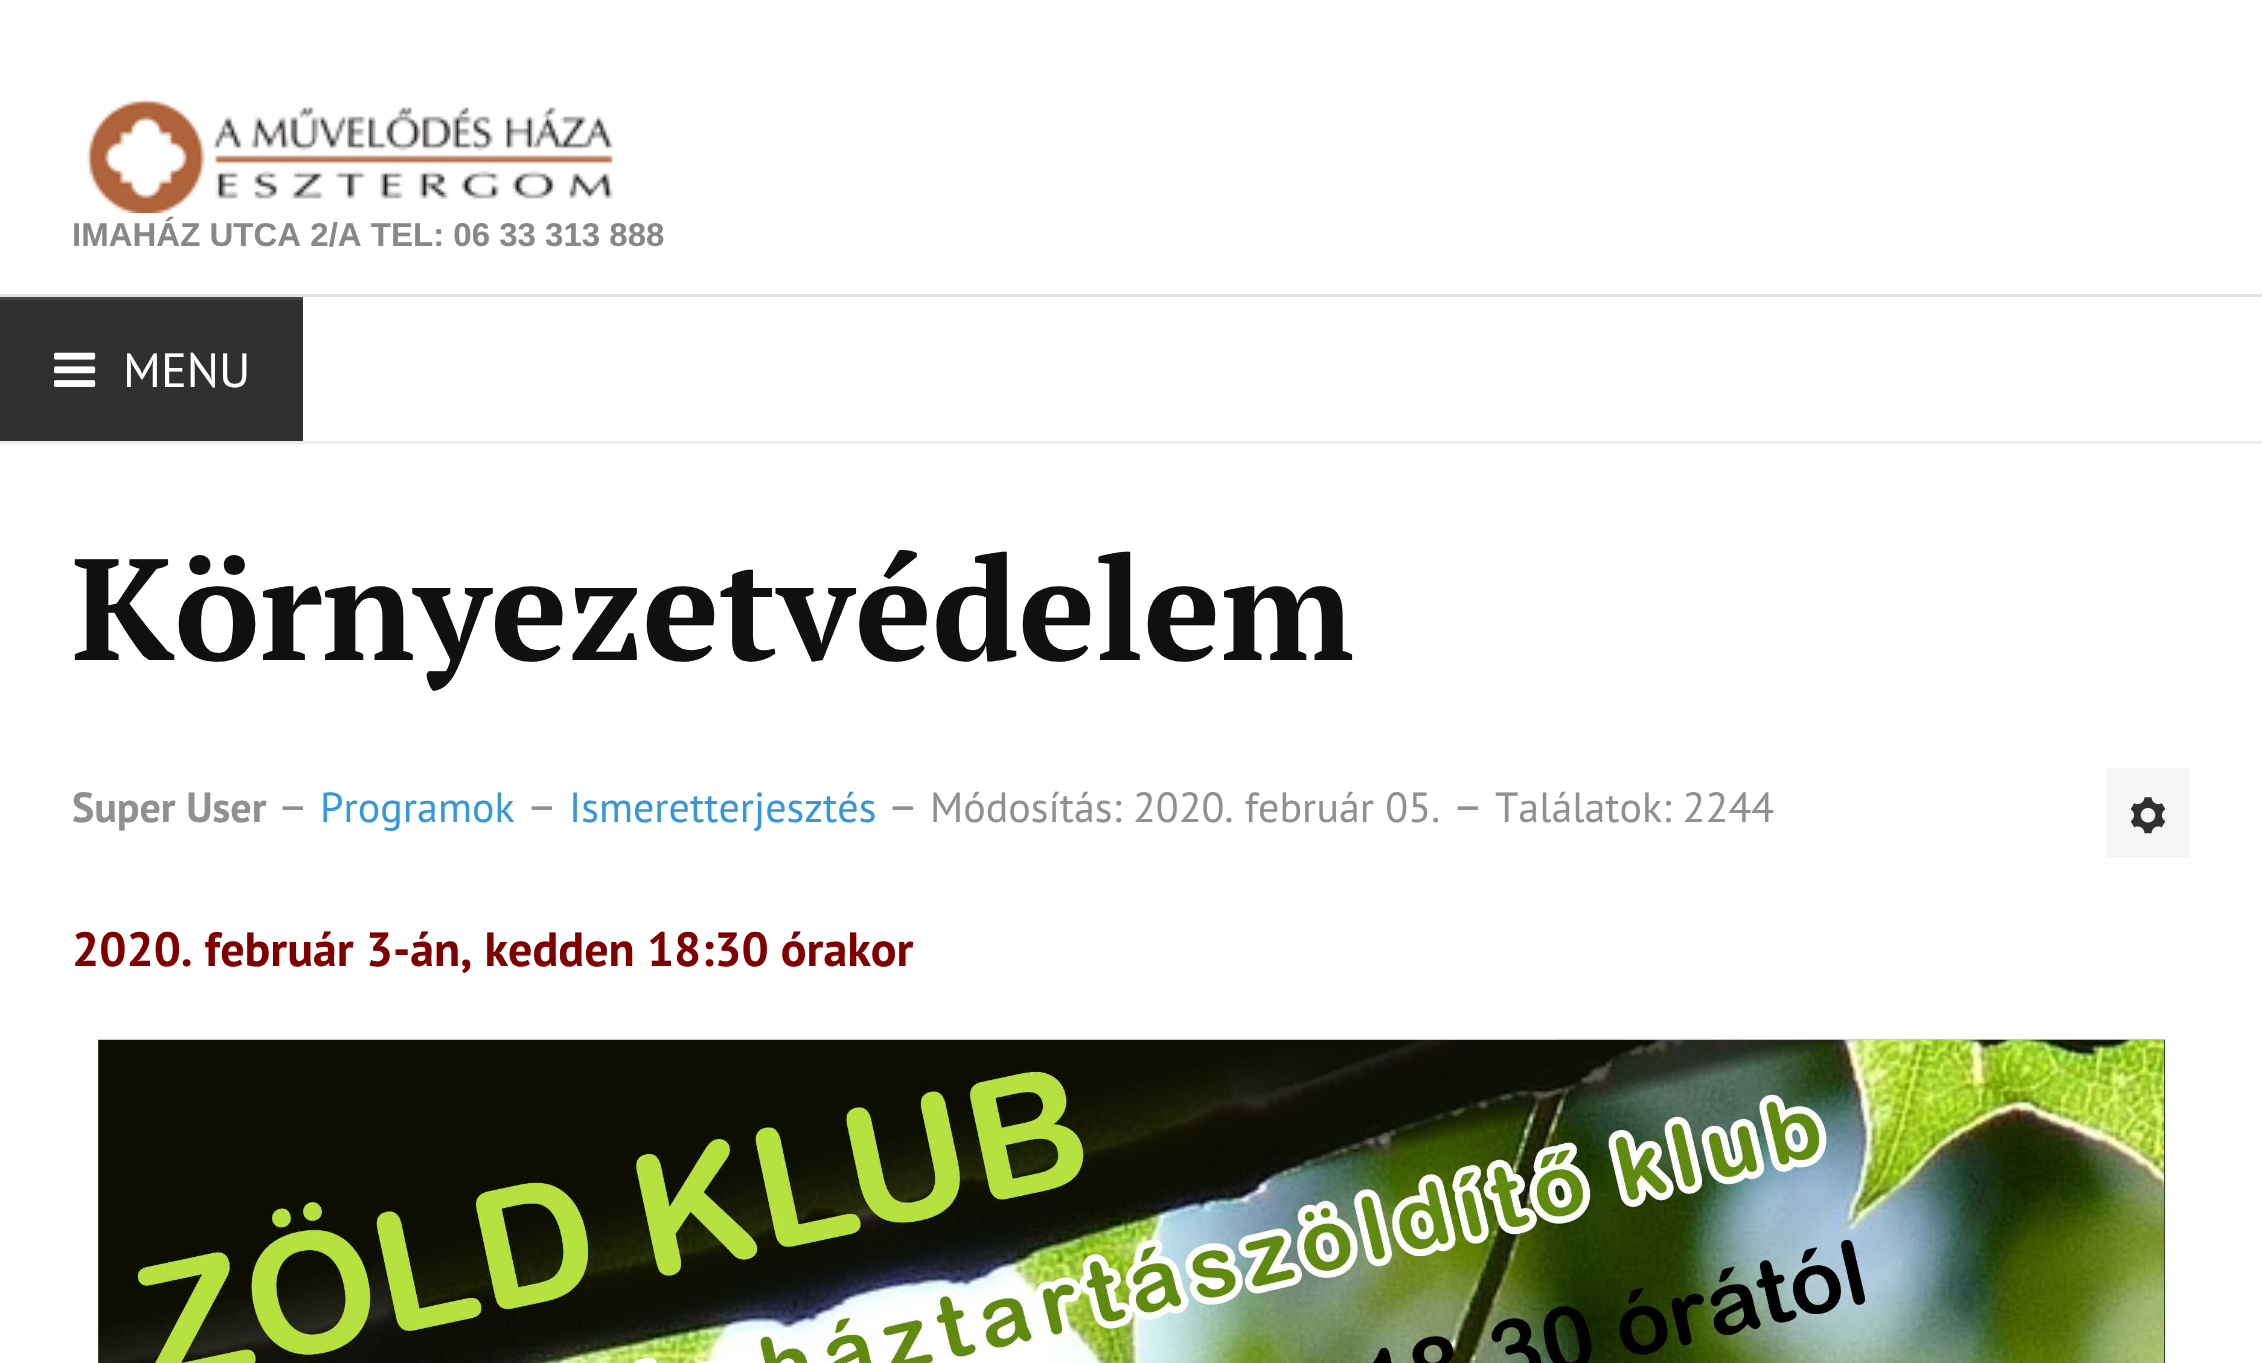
void draw(SkCanvas* canvas) {
	SkPaint paint;
	paint.setAntiAlias(true);
	canvas->clear(0xffffffff);
	paint.setColor(0xffe0e0e0);
	canvas->drawRect(SkRect::MakeXYWH(0, 294, 2262, 3), paint);
	canvas->drawImageRect(SkImages::DeferredFromEncodedData(SkData::MakeFromFileName("img1.png")), SkRect::MakeXYWH(86, 98, 529, 115), SkSamplingOptions());
	SkFont f1(fontMgr->matchFamilyStyle("Liberation Sans", SkFontStyle::Bold()), 33);
	f1.setSubpixel(true);
	paint.setColor(0xff888888);
	canvas->drawString("IMAHÁZ UTCA 2/A TEL: 06 33 313 888", 72, 246, f1, paint);
	paint.setColor(0xffeeeeee);
	canvas->drawRect(SkRect::MakeXYWH(0, 441, 2262, 3), paint);
	paint.setColor(0xff303030);
	canvas->drawRect(SkRect::MakeXYWH(0, 300, 303, 141), paint);
	paint.setColor(0xff454545);
	canvas->drawRect(SkRect::MakeXYWH(0, 297, 303, 3), paint);
	canvas->drawImageRect(SkImages::DeferredFromEncodedData(SkData::MakeFromFileName("img2.png")), SkRect::MakeXYWH(54, 352, 42, 35), SkSamplingOptions());
	SkFont f2(fontMgr->matchFamilyStyle("PT Sans", SkFontStyle::Normal()), 48);
	f2.setSubpixel(true);
	paint.setColor(0xffffffff);
	canvas->drawString("MENU", 123, 387, f2, paint);
	SkFont f3(fontMgr->matchFamilyStyle("PT Serif", SkFontStyle::Bold()), 144);
	f3.setSubpixel(true);
	paint.setColor(0xff101010);
	canvas->drawString("Környezetvédelem", 72, 660, f3, paint);
	SkFont f4(fontMgr->matchFamilyStyle("PT Sans", SkFontStyle::Bold()), 42);
	f4.setSubpixel(true);
	paint.setColor(0xff909090);
	canvas->drawString("Super User", 72, 822, f4, paint);
	canvas->drawString("–", 277, 822, f2, paint);
	SkFont f5(fontMgr->matchFamilyStyle("PT Sans", SkFontStyle::Normal()), 42);
	f5.setSubpixel(true);
	paint.setColor(0xff3498db);
	canvas->drawString("Programok", 320, 822, f5, paint);
	paint.setColor(0xff909090);
	canvas->drawString("–", 526, 822, f2, paint);
	paint.setColor(0xff3498db);
	canvas->drawString("Ismeretterjesztés", 569, 822, f5, paint);
	paint.setColor(0xff909090);
	canvas->drawString("–", 887, 822, f2, paint);
	canvas->drawString("Módosítás: 2020. február 05.", 930, 822, f5, paint);
	canvas->drawString("–", 1452, 822, f2, paint);
	canvas->drawString("Találatok: 2244", 1495, 822, f5, paint);
	paint.setColor(0xfff5f5f5);
	canvas->drawRect(SkRect::MakeXYWH(2106, 768, 84, 90), paint);
	canvas->drawImageRect(SkImages::DeferredFromEncodedData(SkData::MakeFromFileName("img3.png")), SkRect::MakeXYWH(2130, 797, 36, 37), SkSamplingOptions());
	SkFont f6(fontMgr->matchFamilyStyle("PT Sans", SkFontStyle::Bold()), 48);
	f6.setSubpixel(true);
	paint.setColor(0xff800000);
	canvas->drawString("2020. február 3-án, kedden 18:30 órakor", 72, 966, f6, paint);
	canvas->drawImageRect(SkImages::DeferredFromEncodedData(SkData::MakeFromFileName("img4.png")), SkRect::MakeXYWH(96, 1036, 2073, 327), SkSamplingOptions());
}
